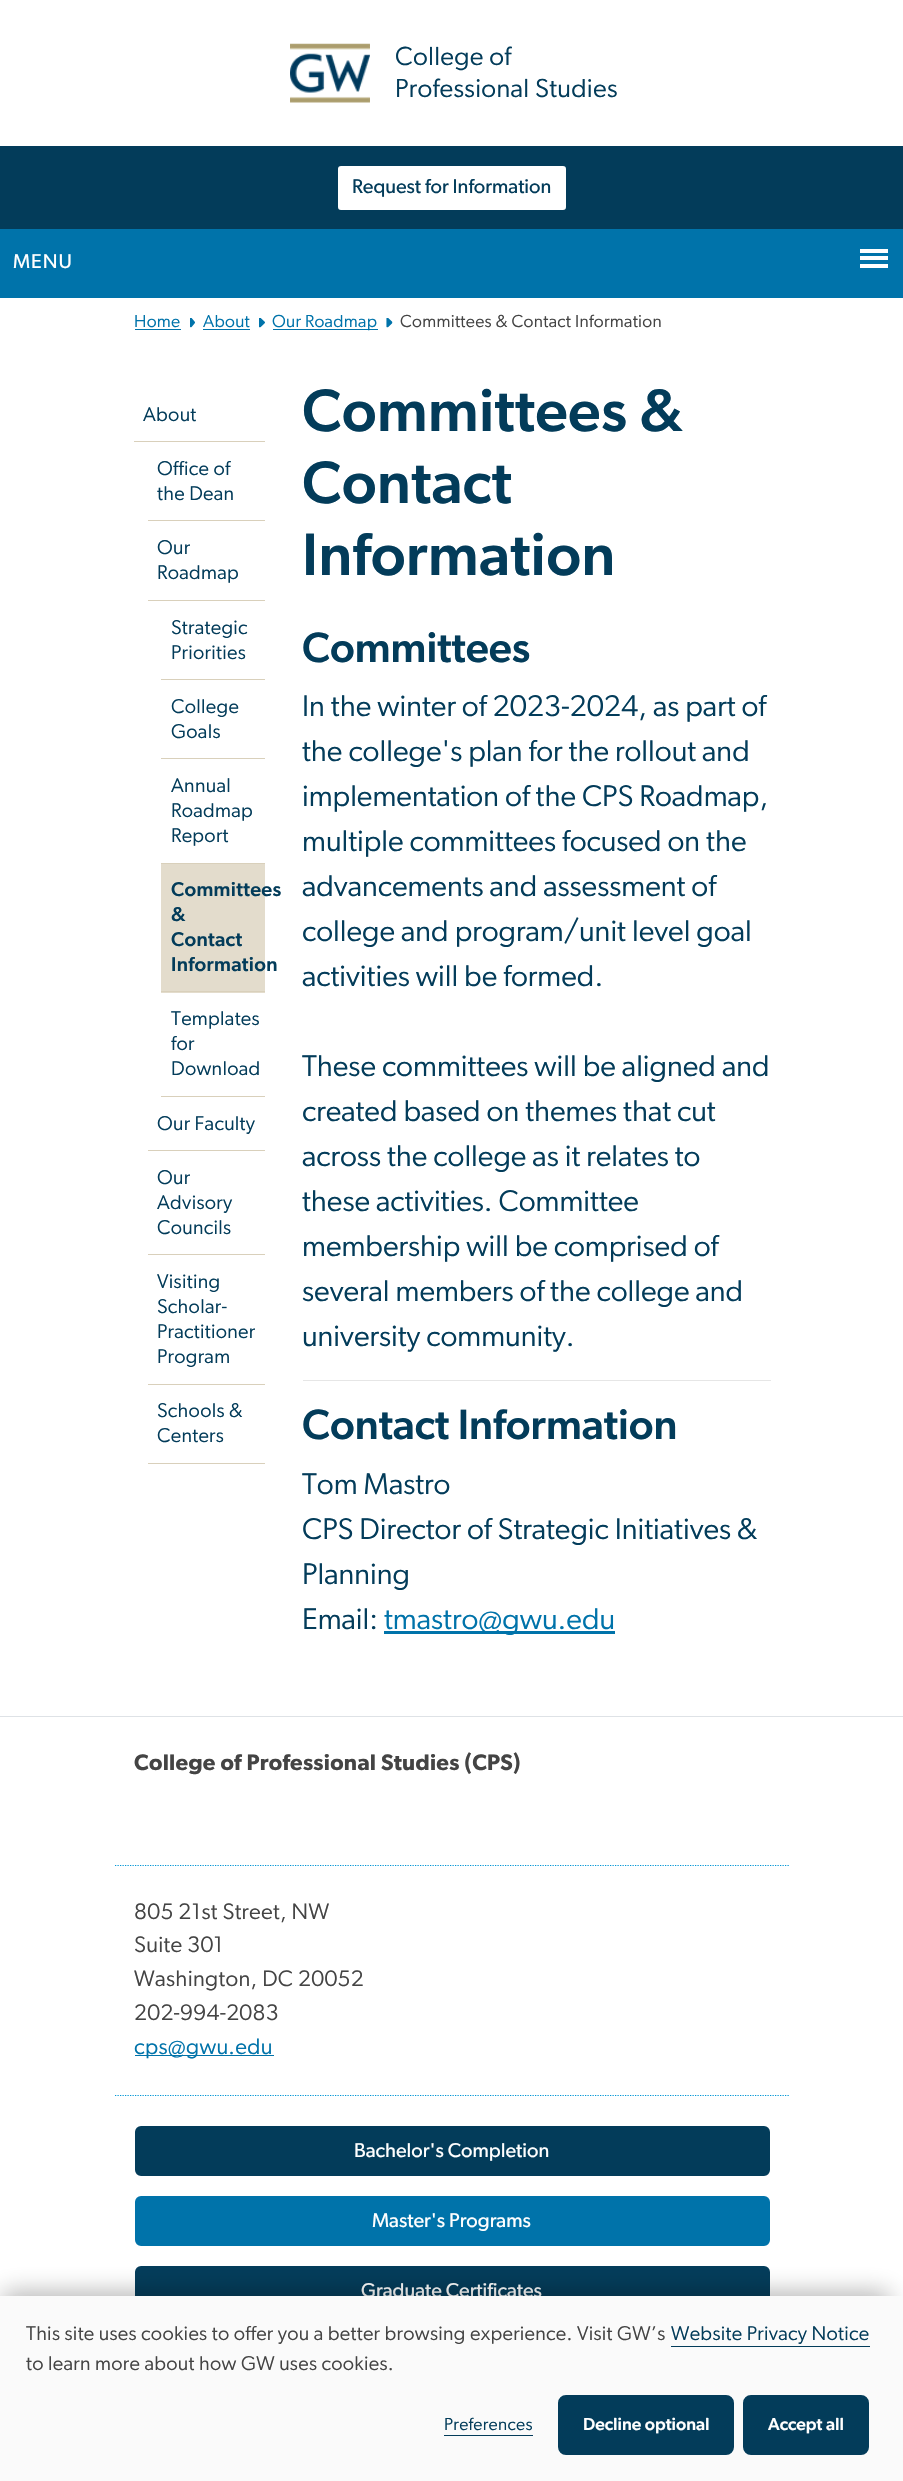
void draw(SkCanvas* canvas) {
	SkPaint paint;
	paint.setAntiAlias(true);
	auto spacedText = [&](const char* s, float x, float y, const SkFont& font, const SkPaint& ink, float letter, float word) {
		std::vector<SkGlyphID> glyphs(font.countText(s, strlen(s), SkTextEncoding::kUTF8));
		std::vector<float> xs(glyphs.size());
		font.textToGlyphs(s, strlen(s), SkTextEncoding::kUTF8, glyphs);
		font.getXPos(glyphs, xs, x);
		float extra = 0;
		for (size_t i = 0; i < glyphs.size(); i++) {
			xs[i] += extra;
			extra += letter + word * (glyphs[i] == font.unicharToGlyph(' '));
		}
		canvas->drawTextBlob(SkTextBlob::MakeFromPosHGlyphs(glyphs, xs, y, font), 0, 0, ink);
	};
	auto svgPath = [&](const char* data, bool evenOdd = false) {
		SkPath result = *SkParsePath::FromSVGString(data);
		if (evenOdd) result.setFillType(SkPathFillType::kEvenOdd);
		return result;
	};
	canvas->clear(0xffffffff);
	canvas->drawImageRect(SkImages::DeferredFromEncodedData(SkData::MakeFromFileName("img1.png")), SkRect::MakeXYWH(290, 43, 80, 60), SkSamplingOptions());
	SkFont f1(fontMgr->matchFamilyStyle("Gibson", SkFontStyle::Normal()), 26.25);
	f1.setSubpixel(true);
	paint.setColor(0xff033c5a);
	spacedText("College of", 395, 65, f1, paint, 0.3, 0);
	spacedText("Professional Studies", 395, 97, f1, paint, 0.3, 0);
	canvas->drawRect(SkRect::MakeXYWH(0, 146, 903, 83), paint);
	paint.setColor(0xffffffff);
	canvas->drawRoundRect(SkRect::MakeXYWH(336.5, 164.5, 231, 47), 4.5, 4.5, paint);
	paint.setStroke(true);
	paint.setStrokeWidth(3);
	paint.setColor(0xff033c5a);
	canvas->drawRoundRect(SkRect::MakeXYWH(336.5, 164.5, 231, 47), 4.5, 4.5, paint);
	SkFont f2(fontMgr->matchFamilyStyle("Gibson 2", SkFontStyle::Normal()), 20);
	f2.setSubpixel(true);
	paint.setStroke(false);
	canvas->drawString("Request for Information", 352, 193, f2, paint);
	paint.setColor(0xff0073aa);
	canvas->drawRect(SkRect::MakeXYWH(0, 229, 903, 69), paint);
	paint.setColor(0xffffffff);
	spacedText("MENU", 13, 268, f2, paint, 1, 0);
	canvas->drawRect(SkRect::MakeXYWH(860, 249, 28, 4), paint);
	canvas->drawRect(SkRect::MakeXYWH(860, 256, 28, 4), paint);
	canvas->drawRect(SkRect::MakeXYWH(860, 264, 28, 4), paint);
	SkFont f3(fontMgr->matchFamilyStyle("Gibson", SkFontStyle::Normal()), 17.5);
	f3.setSubpixel(true);
	paint.setColor(0xff0073aa);
	spacedText("Home", 134, 327, f3, paint, 0.3, 0);
	canvas->drawRect(SkRect::MakeXYWH(135, 329, 46, 1), paint);
	canvas->drawImageRect(SkImages::DeferredFromEncodedData(SkData::MakeFromFileName("img2.png")), SkRect::MakeXYWH(190, 318, 5, 10), SkSamplingOptions());
	spacedText("About", 203, 327, f3, paint, 0.3, 0);
	canvas->drawRect(SkRect::MakeXYWH(203, 329, 47, 1), paint);
	canvas->drawImageRect(SkImages::DeferredFromEncodedData(SkData::MakeFromFileName("img3.png")), SkRect::MakeXYWH(259, 318, 6, 10), SkSamplingOptions());
	canvas->drawRect(SkRect::MakeXYWH(273, 329, 105, 1), paint);
	spacedText("Our Roadmap", 272, 327, f3, paint, 0.3, 0);
	canvas->drawImageRect(SkImages::DeferredFromEncodedData(SkData::MakeFromFileName("img4.png")), SkRect::MakeXYWH(386, 318, 7, 10), SkSamplingOptions());
	paint.setColor(0xff444444);
	spacedText("Committees & Contact Information", 400, 327, f3, paint, 0.3, 0);
	paint.setColor(0xffd9d0bb);
	canvas->drawRect(SkRect::MakeXYWH(134, 441, 131, 1), paint);
	SkFont f4(fontMgr->matchFamilyStyle("Gibson", SkFontStyle::Normal()), 20);
	f4.setSubpixel(true);
	paint.setColor(0xff033c5a);
	spacedText("About", 143, 421, f4, paint, 0.3, 0);
	paint.setColor(0xffd9d0bb);
	canvas->drawRect(SkRect::MakeXYWH(148, 520, 117, 1), paint);
	paint.setColor(0xff033c5a);
	spacedText("Office of", 157, 475, f4, paint, 0.3, 0);
	spacedText("the Dean", 157, 500, f4, paint, 0.3, 0);
	paint.setColor(0xffd9d0bb);
	canvas->drawRect(SkRect::MakeXYWH(148, 600, 117, 1), paint);
	paint.setColor(0xff033c5a);
	spacedText("Our", 157, 554, f4, paint, 0.3, 0);
	spacedText("Roadmap", 157, 579, f4, paint, 0.3, 0);
	paint.setColor(0xffd9d0bb);
	canvas->drawRect(SkRect::MakeXYWH(161, 679, 104, 1), paint);
	paint.setColor(0xff033c5a);
	spacedText("Strategic", 171, 634, f4, paint, 0.3, 0);
	spacedText("Priorities", 171, 659, f4, paint, 0.3, 0);
	paint.setColor(0xffd9d0bb);
	canvas->drawRect(SkRect::MakeXYWH(161, 758, 104, 1), paint);
	paint.setColor(0xff033c5a);
	spacedText("College", 171, 713, f4, paint, 0.3, 0);
	spacedText("Goals", 171, 738, f4, paint, 0.3, 0);
	paint.setColor(0xffd9d0bb);
	canvas->drawRect(SkRect::MakeXYWH(161, 863, 104, 1), paint);
	paint.setColor(0xff033c5a);
	spacedText("Annual", 171, 792, f4, paint, 0.3, 0);
	spacedText("Roadmap", 171, 817, f4, paint, 0.3, 0);
	spacedText("Report", 171, 842, f4, paint, 0.3, 0);
	paint.setColor(0xffe3dccc);
	canvas->drawRect(SkRect::MakeXYWH(161, 864, 104, 129), paint);
	paint.setColor(0xffd9d0bb);
	canvas->drawRect(SkRect::MakeXYWH(161, 991, 104, 1), paint);
	SkFont f5(fontMgr->matchFamilyStyle("Gibson", SkFontStyle(500, SkFontStyle::kNormal_Width, SkFontStyle::kUpright_Slant)), 20);
	f5.setSubpixel(true);
	paint.setColor(0xff033c5a);
	spacedText("Committees", 171, 896, f5, paint, 0.3, 0);
	spacedText("&", 171, 921, f5, paint, 0.3, 0);
	spacedText("Contact", 171, 946, f5, paint, 0.3, 0);
	spacedText("Information", 171, 971, f5, paint, 0.3, 0);
	paint.setColor(0xffd9d0bb);
	canvas->drawRect(SkRect::MakeXYWH(161, 1096, 104, 1), paint);
	paint.setColor(0xff033c5a);
	spacedText("Templates", 171, 1025, f4, paint, 0.3, 0);
	spacedText("for", 171, 1050, f4, paint, 0.3, 0);
	spacedText("Download", 171, 1075, f4, paint, 0.3, 0);
	paint.setColor(0xffd9d0bb);
	canvas->drawRect(SkRect::MakeXYWH(148, 1150, 117, 1), paint);
	paint.setColor(0xff033c5a);
	spacedText("Our Faculty", 157, 1130, f4, paint, 0.3, 0);
	paint.setColor(0xffd9d0bb);
	canvas->drawRect(SkRect::MakeXYWH(148, 1254, 117, 1), paint);
	paint.setColor(0xff033c5a);
	spacedText("Our", 157, 1184, f4, paint, 0.3, 0);
	spacedText("Advisory", 157, 1209, f4, paint, 0.3, 0);
	spacedText("Councils", 157, 1234, f4, paint, 0.3, 0);
	paint.setColor(0xffd9d0bb);
	canvas->drawRect(SkRect::MakeXYWH(148, 1384, 117, 1), paint);
	paint.setColor(0xff033c5a);
	spacedText("Visiting", 157, 1288, f4, paint, 0.3, 0);
	spacedText("Scholar-", 157, 1313, f4, paint, 0.3, 0);
	spacedText("Practitioner", 157, 1338, f4, paint, 0.3, 0);
	spacedText("Program", 157, 1363, f4, paint, 0.3, 0);
	paint.setColor(0xffd9d0bb);
	canvas->drawRect(SkRect::MakeXYWH(148, 1463, 117, 1), paint);
	paint.setColor(0xff033c5a);
	spacedText("Schools &", 157, 1417, f4, paint, 0.3, 0);
	spacedText("Centers", 157, 1442, f4, paint, 0.3, 0);
	SkFont f6(fontMgr->matchFamilyStyle("Gibson", SkFontStyle(500, SkFontStyle::kNormal_Width, SkFontStyle::kUpright_Slant)), 60);
	f6.setSubpixel(true);
	spacedText("Committees &", 302, 431, f6, paint, 0.3, 0);
	spacedText("Contact", 302, 503, f6, paint, 0.3, 0);
	spacedText("Information", 302, 575, f6, paint, 0.3, 0);
	SkFont f7(fontMgr->matchFamilyStyle("Gibson", SkFontStyle(500, SkFontStyle::kNormal_Width, SkFontStyle::kUpright_Slant)), 42.5);
	f7.setSubpixel(true);
	canvas->drawString("Committees", 302, 662, f7, paint);
	SkFont f8(fontMgr->matchFamilyStyle("Gibson", SkFontStyle::Normal()), 30);
	f8.setSubpixel(true);
	canvas->drawString("In the winter of 2023-2024, as part of", 302, 716, f8, paint);
	canvas->drawString("the college's plan for the rollout and", 302, 761, f8, paint);
	canvas->drawString("implementation of the CPS Roadmap,", 302, 806, f8, paint);
	canvas->drawString("multiple committees focused on the", 302, 851, f8, paint);
	canvas->drawString("advancements and assessment of", 302, 896, f8, paint);
	canvas->drawString("college and program/unit level goal", 302, 941, f8, paint);
	canvas->drawString("activities will be formed.", 302, 986, f8, paint);
	canvas->drawString("These committees will be aligned and", 302, 1076, f8, paint);
	canvas->drawString("created based on themes that cut", 302, 1121, f8, paint);
	canvas->drawString("across the college as it relates to", 302, 1166, f8, paint);
	canvas->drawString("these activities. Committee", 302, 1211, f8, paint);
	canvas->drawString("membership will be comprised of", 302, 1256, f8, paint);
	canvas->drawString("several members of the college and", 302, 1301, f8, paint);
	canvas->drawString("university community.", 302, 1346, f8, paint);
	paint.setColor(0xffe6e6e6);
	canvas->drawRect(SkRect::MakeXYWH(303, 1380, 468, 1), paint);
	paint.setColor(0xff033c5a);
	canvas->drawString("Contact Information", 302, 1439, f7, paint);
	canvas->drawString("Tom Mastro", 302, 1494, f8, paint);
	canvas->drawString("CPS Director of Strategic Initiatives &", 302, 1539, f8, paint);
	canvas->drawString("Planning", 302, 1584, f8, paint);
	canvas->drawString("Email:", 302, 1629, f8, paint);
	paint.setColor(0xff0073aa);
	canvas->drawRect(SkRect::MakeXYWH(384, 1631, 231, 3), paint);
	canvas->drawString("tmastro@gwu.edu", 384, 1629, f8, paint);
	paint.setColor(0xffdee2e6);
	canvas->drawRect(SkRect::MakeXYWH(0, 1716, 903, 1), paint);
	SkFont f9(fontMgr->matchFamilyStyle("Gibson", SkFontStyle(600, SkFontStyle::kNormal_Width, SkFontStyle::kUpright_Slant)), 22.5);
	f9.setSubpixel(true);
	paint.setColor(0xff444444);
	spacedText("College of Professional Studies (CPS)", 134, 1770, f9, paint, 0.3, 0);
	paint.setStroke(true);
	paint.setStrokeWidth(1.2);
	paint.setColor(0xff0096d6);
	paint.setPathEffect(SkDashPathEffect::Make({{1.25f, 1.25f}}, 0));
	canvas->drawPath(svgPath("M115 1865.5H790"), paint);
	paint.setPathEffect(nullptr);
	SkFont f10(fontMgr->matchFamilyStyle("Gibson", SkFontStyle::Normal()), 22.5);
	f10.setSubpixel(true);
	paint.setStroke(false);
	paint.setColor(0xff444444);
	spacedText("805 21st Street, NW", 134, 1919, f10, paint, 0.3, 0);
	spacedText("Suite 301", 134, 1952, f10, paint, 0.3, 0);
	spacedText("Washington, DC 20052", 134, 1986, f10, paint, 0.3, 0);
	spacedText("202-994-2083", 134, 2020, f10, paint, 0.3, 0);
	paint.setColor(0xff0073aa);
	canvas->drawRect(SkRect::MakeXYWH(135, 2055, 139, 1), paint);
	spacedText("cps@gwu.edu", 134, 2054, f10, paint, 0.3, 0);
	paint.setStroke(true);
	paint.setColor(0xff0096d6);
	paint.setPathEffect(SkDashPathEffect::Make({{1.25f, 1.25f}}, 0));
	canvas->drawPath(svgPath("M115 2095.5H790"), paint);
	paint.setPathEffect(nullptr);
	paint.setStroke(false);
	paint.setColor(0xff033c5a);
	canvas->drawRoundRect(SkRect::MakeXYWH(136.5, 2127.5, 632, 47), 4.5, 4.5, paint);
	paint.setStroke(true);
	paint.setStrokeWidth(3);
	canvas->drawRoundRect(SkRect::MakeXYWH(136.5, 2127.5, 632, 47), 4.5, 4.5, paint);
	paint.setStroke(false);
	paint.setColor(0xffffffff);
	canvas->drawString("Bachelor's Completion", 354, 2157, f2, paint);
	paint.setColor(0xff0073aa);
	canvas->drawRoundRect(SkRect::MakeXYWH(136.5, 2197.5, 632, 47), 4.5, 4.5, paint);
	paint.setStroke(true);
	canvas->drawRoundRect(SkRect::MakeXYWH(136.5, 2197.5, 632, 47), 4.5, 4.5, paint);
	paint.setStroke(false);
	paint.setColor(0xffffffff);
	canvas->drawString("Master's Programs", 372, 2227, f2, paint);
	paint.setColor(0xff033c5a);
	canvas->drawRoundRect(SkRect::MakeXYWH(136.5, 2267.5, 632, 47), 4.5, 4.5, paint);
	paint.setStroke(true);
	canvas->drawRoundRect(SkRect::MakeXYWH(136.5, 2267.5, 632, 47), 4.5, 4.5, paint);
	paint.setStroke(false);
	paint.setColor(0xffffffff);
	canvas->drawString("Graduate Certificates", 361, 2297, f2, paint);
	paint.setColor(0x52050505);
	paint.setMaskFilter(SkMaskFilter::MakeBlur(kNormal_SkBlurStyle, 12));
	canvas->drawRect(SkRect::MakeXYWH(3, 2293, 886, 167), paint);
	paint.setMaskFilter(nullptr);
	paint.setColor(0xfffafafa);
	canvas->drawRect(SkRect::MakeXYWH(0, 2296, 903, 185), paint);
	paint.setColor(0xff444444);
	spacedText("This site uses cookies to offer you a better browsing experience. Visit GW’s", 26, 2340, f4, paint, 0.3, 0);
	paint.setColor(0xff033c5a);
	canvas->drawRect(SkRect::MakeXYWH(671, 2346, 199, 1), paint);
	spacedText("Website Privacy Notice", 671, 2340, f4, paint, 0.3, 0);
	paint.setColor(0xff444444);
	spacedText("to learn more about how GW uses cookies.", 26, 2370, f4, paint, 0.3, 0);
	paint.setColor(0xff033c5a);
	canvas->drawRect(SkRect::MakeXYWH(444, 2435, 89, 1), paint);
	spacedText("Preferences", 444, 2430, f3, paint, 0.3, 0);
	canvas->drawRoundRect(SkRect::MakeXYWH(560, 2397, 172, 56), 6, 6, paint);
	paint.setStroke(true);
	paint.setStrokeWidth(4);
	canvas->drawRoundRect(SkRect::MakeXYWH(560, 2397, 172, 56), 6, 6, paint);
	SkFont f11(fontMgr->matchFamilyStyle("Gibson", SkFontStyle(500, SkFontStyle::kNormal_Width, SkFontStyle::kUpright_Slant)), 17.5);
	f11.setSubpixel(true);
	paint.setStroke(false);
	paint.setColor(0xffffffff);
	canvas->drawString("Decline optional", 583, 2430, f11, paint);
	paint.setColor(0xff033c5a);
	canvas->drawRoundRect(SkRect::MakeXYWH(745, 2397, 122, 56), 6, 6, paint);
	paint.setStroke(true);
	canvas->drawRoundRect(SkRect::MakeXYWH(745, 2397, 122, 56), 6, 6, paint);
	paint.setStroke(false);
	paint.setColor(0xffffffff);
	canvas->drawString("Accept all", 768, 2430, f11, paint);
}
